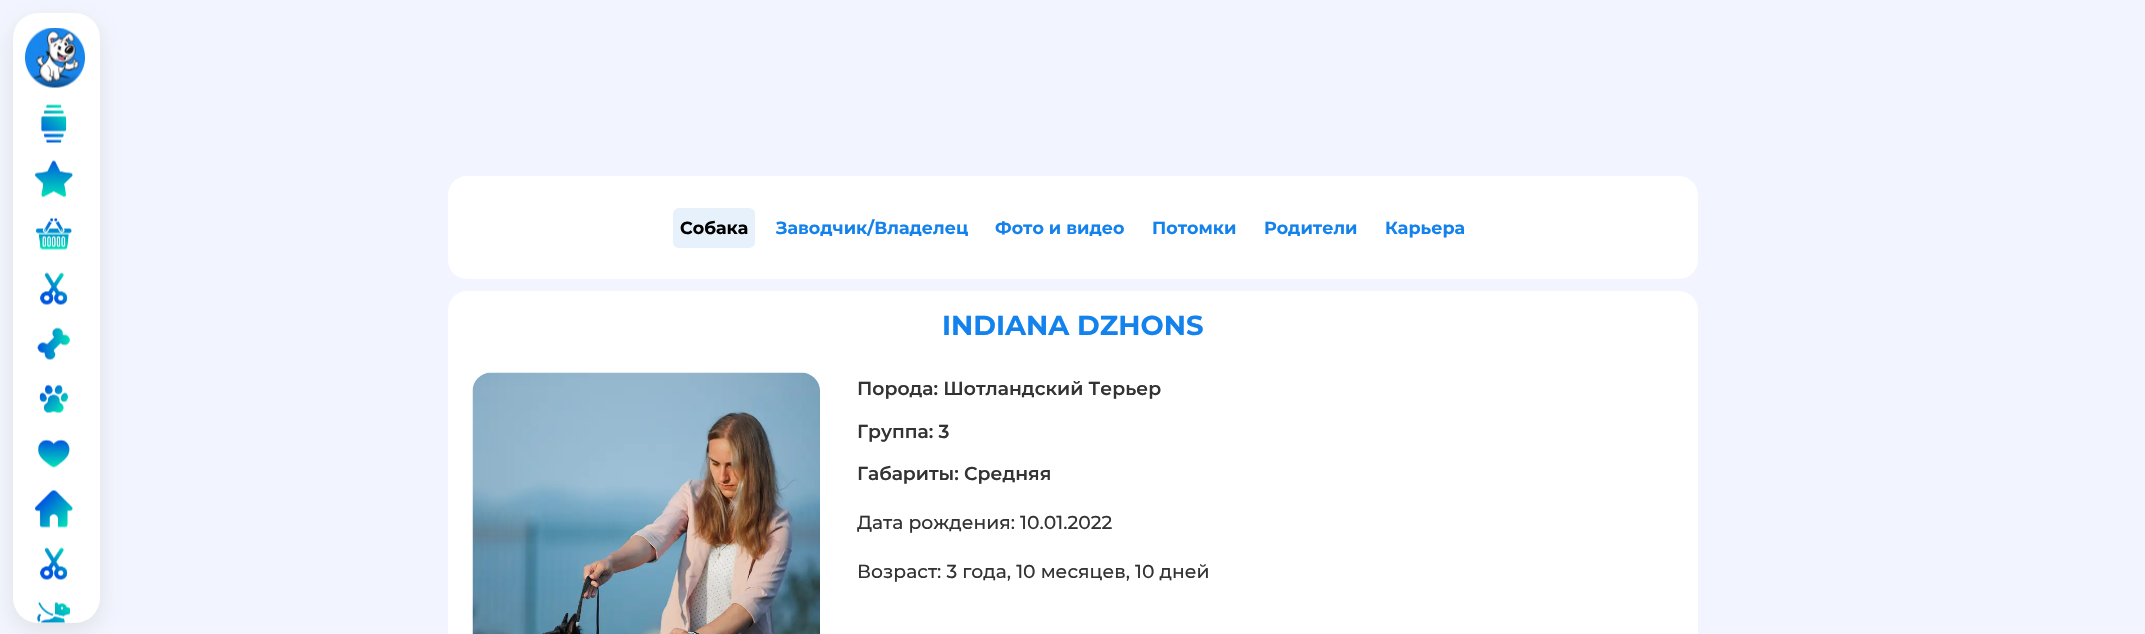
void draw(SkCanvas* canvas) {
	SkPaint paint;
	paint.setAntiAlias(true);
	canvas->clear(0xfff2f5ff);
	paint.setColor(0x80cccccc);
	paint.setMaskFilter(SkMaskFilter::MakeBlur(kNormal_SkBlurStyle, 12.5));
	canvas->drawRoundRect(SkRect::MakeXYWH(13, 21, 87, 610), 25, 25, paint);
	paint.setMaskFilter(nullptr);
	paint.setColor(0xffffffff);
	canvas->drawRoundRect(SkRect::MakeXYWH(13, 13, 87, 610), 25, 25, paint);
	canvas->drawImageRect(SkImages::DeferredFromEncodedData(SkData::MakeFromFileName("img1.png")), SkRect::MakeXYWH(25, 28, 60, 60), SkSamplingOptions());
	canvas->drawImageRect(SkImages::DeferredFromEncodedData(SkData::MakeFromFileName("img2.png")), SkRect::MakeXYWH(41, 104, 26, 39), SkSamplingOptions());
	canvas->drawImageRect(SkImages::DeferredFromEncodedData(SkData::MakeFromFileName("img3.png")), SkRect::MakeXYWH(35, 160, 38, 38), SkSamplingOptions());
	canvas->drawImageRect(SkImages::DeferredFromEncodedData(SkData::MakeFromFileName("img4.png")), SkRect::MakeXYWH(35, 217, 37, 33), SkSamplingOptions());
	canvas->drawImageRect(SkImages::DeferredFromEncodedData(SkData::MakeFromFileName("img5.png")), SkRect::MakeXYWH(40, 272, 28, 33), SkSamplingOptions());
	canvas->drawImageRect(SkImages::DeferredFromEncodedData(SkData::MakeFromFileName("img6.png")), SkRect::MakeXYWH(37, 327, 33, 33), SkSamplingOptions());
	canvas->drawImageRect(SkImages::DeferredFromEncodedData(SkData::MakeFromFileName("img7.png")), SkRect::MakeXYWH(39, 384, 29, 29), SkSamplingOptions());
	canvas->drawImageRect(SkImages::DeferredFromEncodedData(SkData::MakeFromFileName("img8.png")), SkRect::MakeXYWH(38, 439, 32, 29), SkSamplingOptions());
	canvas->drawImageRect(SkImages::DeferredFromEncodedData(SkData::MakeFromFileName("img9.png")), SkRect::MakeXYWH(35, 489, 38, 39), SkSamplingOptions());
	canvas->drawImageRect(SkImages::DeferredFromEncodedData(SkData::MakeFromFileName("img5.png")), SkRect::MakeXYWH(40, 547, 28, 33), SkSamplingOptions());
	canvas->drawImageRect(SkImages::DeferredFromEncodedData(SkData::MakeFromFileName("img10.png")), SkRect::MakeXYWH(37, 602, 33, 21), SkSamplingOptions());
	canvas->drawRoundRect(SkRect::MakeXYWH(448, 176, 1250, 103), 19, 19, paint);
	paint.setColor(0xffe7f1fb);
	canvas->drawRoundRect(SkRect::MakeXYWH(673, 208, 82, 40), 6, 6, paint);
	SkFont f1(fontMgr->matchFamilyStyle("Montserrat", SkFontStyle::Bold()), 17.5);
	f1.setSubpixel(true);
	paint.setColor(0xff000000);
	canvas->drawString("Собака", 680, 234, f1, paint);
	paint.setColor(0xff1482ec);
	canvas->drawString("Заводчик/Владелец", 776, 234, f1, paint);
	canvas->drawString("Фото и видео", 995, 234, f1, paint);
	canvas->drawString("Потомки", 1152, 234, f1, paint);
	canvas->drawString("Родители", 1264, 234, f1, paint);
	canvas->drawString("Карьера", 1385, 234, f1, paint);
	paint.setColor(0xffffffff);
	canvas->drawRoundRect(SkRect::MakeXYWH(448, 291, 1250, 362), 19, 19, paint);
	SkFont f2(fontMgr->matchFamilyStyle("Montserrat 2", SkFontStyle::Bold()), 27.5);
	f2.setSubpixel(true);
	paint.setColor(0xff1482ec);
	canvas->drawString("INDIANA DZHONS", 942, 335, f2, paint);
	canvas->drawImageRect(SkImages::DeferredFromEncodedData(SkData::MakeFromFileName("img11.png")), SkRect::MakeXYWH(472, 372, 348, 262), SkSamplingOptions());
	SkFont f3(fontMgr->matchFamilyStyle("Montserrat", SkFontStyle(600, SkFontStyle::kNormal_Width, SkFontStyle::kUpright_Slant)), 18.75);
	f3.setSubpixel(true);
	paint.setColor(0xff333333);
	canvas->drawString("Порода: Шотландский Терьер", 857, 395, f3, paint);
	canvas->drawString("Группа: 3", 857, 438, f3, paint);
	canvas->drawString("Габариты: Средняя", 857, 480, f3, paint);
	SkFont f4(fontMgr->matchFamilyStyle("Montserrat", SkFontStyle(500, SkFontStyle::kNormal_Width, SkFontStyle::kUpright_Slant)), 18.75);
	f4.setSubpixel(true);
	canvas->drawString("Дата рождения: 10.01.2022", 857, 529, f4, paint);
	canvas->drawString("Возраст: 3 года, 10 месяцев, 10 дней", 857, 578, f4, paint);
}
